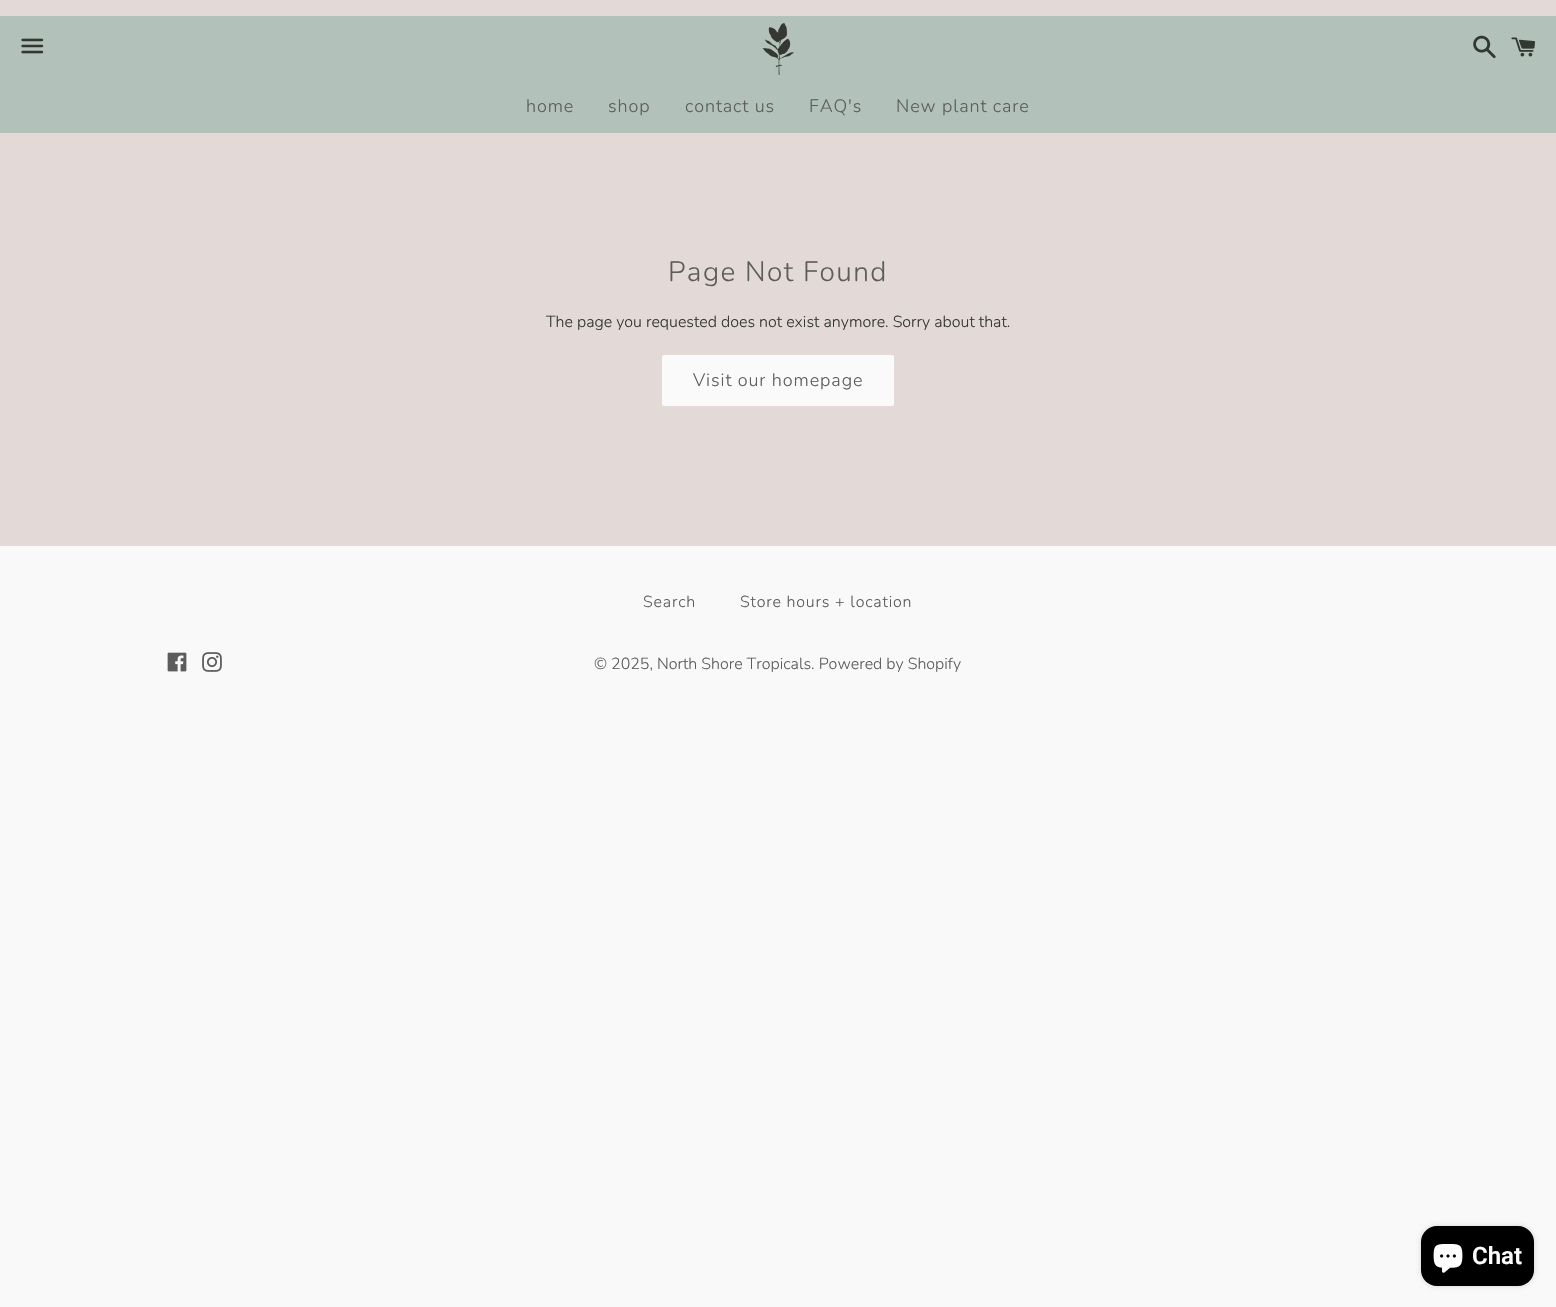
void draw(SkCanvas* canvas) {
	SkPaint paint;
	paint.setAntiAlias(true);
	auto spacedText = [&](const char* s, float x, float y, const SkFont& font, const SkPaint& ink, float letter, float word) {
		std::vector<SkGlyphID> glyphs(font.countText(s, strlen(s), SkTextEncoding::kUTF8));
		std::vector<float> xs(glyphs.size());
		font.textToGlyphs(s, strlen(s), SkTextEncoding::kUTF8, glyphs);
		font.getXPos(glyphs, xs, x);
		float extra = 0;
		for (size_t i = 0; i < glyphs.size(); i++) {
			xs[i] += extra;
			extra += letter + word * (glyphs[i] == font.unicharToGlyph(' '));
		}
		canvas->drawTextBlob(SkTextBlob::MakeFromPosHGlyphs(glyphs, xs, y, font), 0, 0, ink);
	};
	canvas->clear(0xfff9f9f9);
	paint.setColor(0xffe3d9d6);
	canvas->drawRect(SkRect::MakeXYWH(0, 0, 1556, 546), paint);
	paint.setColor(0xffb2c2ba);
	canvas->drawRect(SkRect::MakeXYWH(0, 16, 1556, 117), paint);
	canvas->drawImageRect(SkImages::DeferredFromEncodedData(SkData::MakeFromFileName("img1.png")), SkRect::MakeXYWH(21, 38, 23, 16), SkSamplingOptions());
	canvas->drawImageRect(SkImages::DeferredFromEncodedData(SkData::MakeFromFileName("img2.png")), SkRect::MakeXYWH(762, 23, 32, 53), SkSamplingOptions());
	canvas->drawImageRect(SkImages::DeferredFromEncodedData(SkData::MakeFromFileName("img3.png")), SkRect::MakeXYWH(1473, 35, 23, 24), SkSamplingOptions());
	canvas->drawImageRect(SkImages::DeferredFromEncodedData(SkData::MakeFromFileName("img4.png")), SkRect::MakeXYWH(1511, 37, 25, 20), SkSamplingOptions());
	SkFont f1(fontMgr->matchFamilyStyle("Nunito", SkFontStyle(300, SkFontStyle::kNormal_Width, SkFontStyle::kUpright_Slant)), 18);
	f1.setSubpixel(true);
	paint.setColor(0xff5c5c5c);
	spacedText("home", 526, 112, f1, paint, 0.9, 0);
	spacedText("shop", 608, 112, f1, paint, 0.9, 0);
	spacedText("contact us", 685, 112, f1, paint, 0.9, 0);
	spacedText("FAQ's", 809, 112, f1, paint, 0.9, 0);
	spacedText("New plant care", 896, 112, f1, paint, 0.9, 0);
	SkFont f2(fontMgr->matchFamilyStyle("Nunito", SkFontStyle(300, SkFontStyle::kNormal_Width, SkFontStyle::kUpright_Slant)), 28);
	f2.setSubpixel(true);
	spacedText("Page Not Found", 668, 281, f2, paint, 1.4, 0);
	SkFont f3(fontMgr->matchFamilyStyle("Nunito", SkFontStyle(300, SkFontStyle::kNormal_Width, SkFontStyle::kUpright_Slant)), 16);
	f3.setSubpixel(true);
	paint.setColor(0xff333731);
	canvas->drawString("The page you requested does not exist anymore. Sorry about that.", 546, 327, f3, paint);
	paint.setColor(0xfffafafa);
	canvas->drawRoundRect(SkRect::MakeXYWH(662, 355, 232, 51), 2, 2, paint);
	paint.setColor(0xff5c5c5c);
	spacedText("Visit our homepage", 693, 386, f1, paint, 0.9, 0);
	spacedText("Search", 643, 607, f3, paint, 0.8, 0);
	spacedText("Store hours + location", 740, 607, f3, paint, 0.8, 0);
	canvas->drawImageRect(SkImages::DeferredFromEncodedData(SkData::MakeFromFileName("img5.png")), SkRect::MakeXYWH(167, 652, 20, 20), SkSamplingOptions());
	canvas->drawImageRect(SkImages::DeferredFromEncodedData(SkData::MakeFromFileName("img6.png")), SkRect::MakeXYWH(202, 652, 20, 20), SkSamplingOptions());
	canvas->drawString("© 2025, North Shore Tropicals. Powered by Shopify", 594, 669, f3, paint);
	paint.setColor(0x26000000);
	paint.setMaskFilter(SkMaskFilter::MakeBlur(kNormal_SkBlurStyle, 2.5));
	canvas->drawRoundRect(SkRect::MakeXYWH(1421, 1226, 113, 60), 16, 16, paint);
	paint.setMaskFilter(nullptr);
	paint.setColor(0xff000000);
	canvas->drawRoundRect(SkRect::MakeXYWH(1421, 1226, 113, 60), 16, 16, paint);
	canvas->drawImageRect(SkImages::DeferredFromEncodedData(SkData::MakeFromFileName("img7.png")), SkRect::MakeXYWH(1433, 1244, 30, 29), SkSamplingOptions());
	SkFont f4(fontMgr->matchFamilyStyle("Roboto", SkFontStyle(600, SkFontStyle::kNormal_Width, SkFontStyle::kUpright_Slant)), 24);
	f4.setSubpixel(true);
	paint.setColor(0xffffffff);
	canvas->drawString("Chat", 1472, 1264, f4, paint);
}
